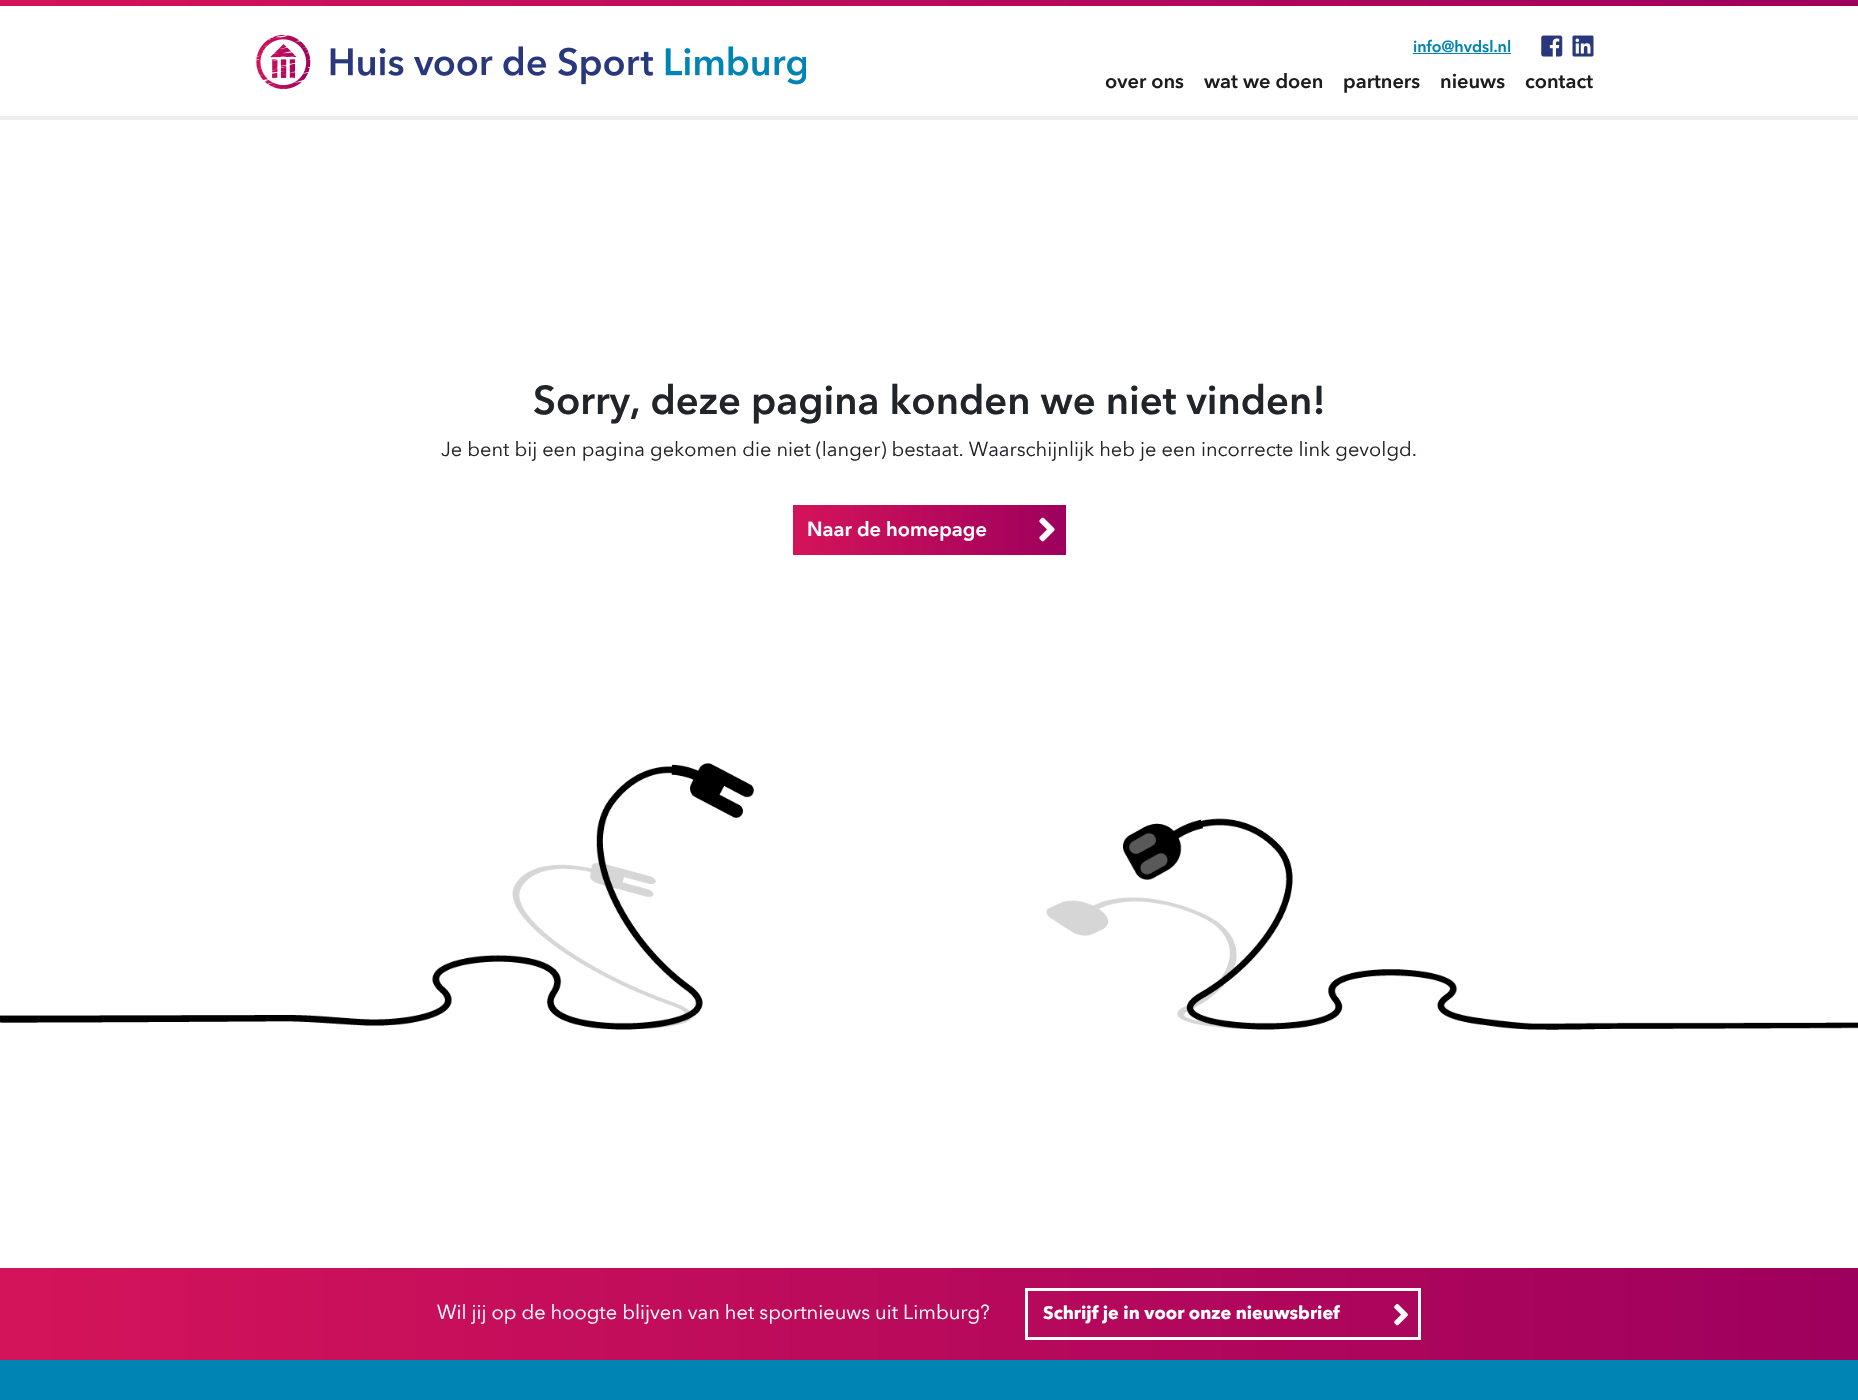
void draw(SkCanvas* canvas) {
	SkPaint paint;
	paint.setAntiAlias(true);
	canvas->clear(0xffffffff);
	{
		const SkColor colors[] = {0xffd4145a, 0xff9e005d};
		const float stops[] = {0, 1};
		const SkPoint ends[] = {{0, 3.1}, {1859, 3.1}};
		paint.setShader(SkGradientShader::MakeLinear(ends, colors, stops, 2, SkTileMode::kClamp));
		paint.setAlpha(255);
	}
	canvas->drawRect(SkRect::MakeXYWH(0, 0, 1858, 6), paint);
	canvas->drawImageRect(SkImages::DeferredFromEncodedData(SkData::MakeFromFileName("img1.png")), SkRect::MakeXYWH(256, 35, 550, 54), SkSamplingOptions());
	SkFont f1(fontMgr->matchFamilyStyle("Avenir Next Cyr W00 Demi", SkFontStyle::Bold()), 16);
	f1.setSubpixel(true);
	paint.setShader(nullptr);
	paint.setColor(0xff0084b4);
	canvas->drawString("info@hvdsl.nl", 1413, 52, f1, paint);
	canvas->drawRect(SkRect::MakeXYWH(1413, 53, 98, 1), paint);
	canvas->drawImageRect(SkImages::DeferredFromEncodedData(SkData::MakeFromFileName("img2.png")), SkRect::MakeXYWH(1541, 35, 22, 22), SkSamplingOptions());
	canvas->drawImageRect(SkImages::DeferredFromEncodedData(SkData::MakeFromFileName("img3.png")), SkRect::MakeXYWH(1572, 35, 22, 22), SkSamplingOptions());
	SkFont f2(fontMgr->matchFamilyStyle("Avenir Next Cyr W00 Demi", SkFontStyle::Bold()), 20);
	f2.setSubpixel(true);
	paint.setColor(0xff1d1d1b);
	canvas->drawString("over ons", 1105, 88, f2, paint);
	canvas->drawString("wat we doen", 1204, 88, f2, paint);
	canvas->drawString("partners", 1343, 88, f2, paint);
	canvas->drawString("nieuws", 1440, 88, f2, paint);
	canvas->drawString("contact", 1525, 88, f2, paint);
	paint.setColor(0xffeeeeee);
	canvas->drawRect(SkRect::MakeXYWH(0, 116, 1858, 4), paint);
	SkFont f3(fontMgr->matchFamilyStyle("Avenir Next Cyr W00 Demi", SkFontStyle::Bold()), 40);
	f3.setSubpixel(true);
	paint.setColor(0xff212529);
	canvas->drawString("Sorry, deze pagina konden we niet vinden!", 533, 414, f3, paint);
	SkFont f4(fontMgr->matchFamilyStyle("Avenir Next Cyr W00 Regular", SkFontStyle::Normal()), 20);
	f4.setSubpixel(true);
	canvas->drawString("Je bent bij een pagina gekomen die niet (langer) bestaat. Waarschijnlijk heb je een incorrecte link gevolgd.", 441, 456, f4, paint);
	{
		const SkColor colors[] = {0xffd4145a, 0xff9e005d};
		const float stops[] = {0, 1};
		const SkPoint ends[] = {{793, 530}, {1066, 530}};
		paint.setShader(SkGradientShader::MakeLinear(ends, colors, stops, 2, SkTileMode::kClamp));
		paint.setAlpha(255);
	}
	canvas->drawRect(SkRect::MakeXYWH(793, 505, 273, 50), paint);
	paint.setShader(nullptr);
	paint.setColor(0xffffffff);
	canvas->drawString("Naar de homepage", 807, 536, f2, paint);
	canvas->drawImageRect(SkImages::DeferredFromEncodedData(SkData::MakeFromFileName("img4.png")), SkRect::MakeXYWH(1039, 517, 16, 25), SkSamplingOptions());
	canvas->drawImageRect(SkImages::DeferredFromEncodedData(SkData::MakeFromFileName("img5.png")), SkRect::MakeXYWH(0, 763, 1858, 267), SkSamplingOptions());
	{
		const SkColor colors[] = {0xffd4145a, 0xff9e005d};
		const float stops[] = {0, 1};
		const SkPoint ends[] = {{0, 1314}, {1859, 1314}};
		paint.setShader(SkGradientShader::MakeLinear(ends, colors, stops, 2, SkTileMode::kClamp));
		paint.setAlpha(255);
	}
	canvas->drawRect(SkRect::MakeXYWH(0, 1268, 1858, 92), paint);
	paint.setShader(nullptr);
	paint.setColor(0xffffffff);
	canvas->drawString("Wil jij op de hoogte blijven van het sportnieuws uit Limburg?", 437, 1319, f4, paint);
	paint.setStroke(true);
	paint.setStrokeWidth(3);
	canvas->drawRect(SkRect::MakeXYWH(1026.5, 1289.5, 393, 49), paint);
	SkFont f5(fontMgr->matchFamilyStyle("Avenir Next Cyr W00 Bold", SkFontStyle::Bold()), 18);
	f5.setSubpixel(true);
	paint.setStroke(false);
	canvas->drawString("Schrijf je in voor onze nieuwsbrief", 1043, 1319, f5, paint);
	canvas->drawImageRect(SkImages::DeferredFromEncodedData(SkData::MakeFromFileName("img6.png")), SkRect::MakeXYWH(1394, 1304, 14, 22), SkSamplingOptions());
	paint.setColor(0xff0084b4);
	canvas->drawRect(SkRect::MakeXYWH(0, 1360, 1858, 40), paint);
}
